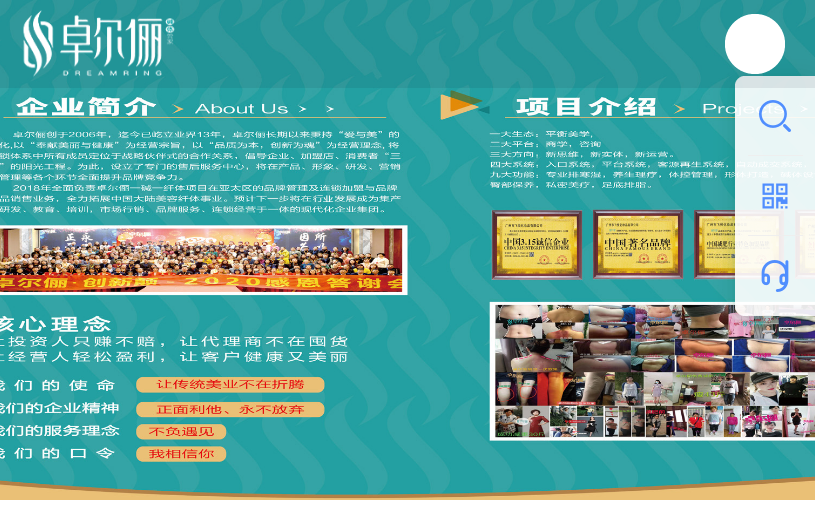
%!PS-Adobe-3.0
%%BoundingBox: 0 0 815 516
%%LanguageLevel: 3
%%Pages: 1
%%EndComments
%%BeginProlog
/setink { dup -16 bitshift 255 div exch dup -8 bitshift 255 and 255 div exch 255 and 255 div setrgbcolor } def
/setalpha { dup .setfillconstantalpha .setstrokeconstantalpha } def
/disc { newpath 0 360 arc closepath } def
/rrect { 5 dict begin { /r /h /w /y /x } { exch def } forall
  x r add y moveto x w add y 2 copy h add r arct x w add y h add x 1 index r arct
  x y h add x y r arct x y 2 copy exch w add exch r arct closepath end } def
/softshadow { 12 dict begin { /a /b /q /h /w /y /x } { exch def } forall gsave /was 0 def
  9 -2 -9 { dup b mul 4 div /e exch def 1 sub .425 mul 2.718 exch exp 1 add a .99 .min exch div /now exch def
    1 1 now sub 1 was sub div sub setalpha /was now def
    w h .min e 2 mul add 0 gt { x e sub y e sub w e 2 mul add h e 2 mul add
      q e add b .6 mul add w h .min 2 div e add .min 0 .max rrect fill } if } for grestore end } def
/drawimage { 5 dict begin { /h /w /y /x /name } { exch def } forall
  gsave x y translate w h scale
  w h 8 [w 0 0 h 0 0] name (r) file false 3 colorimage grestore end } def
%%EndProlog
%%BeginSetup
<< /PageSize [815 516] /PageUsesTransparency true >> setpagedevice
%%EndSetup
%%Page: 1 1
0 .pushpdf14devicefilter
0 516 translate 1 -1 scale
4 setmiterlimit
16#FFFFFF setink
0 0 815 516 rectfill
(img1.raw) 0 0 815 500 drawimage
gsave
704 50 moveto 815 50 lineto 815 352 lineto 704 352 lineto closepath 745 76 moveto 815 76 lineto 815 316 lineto 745 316 lineto 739.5 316 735 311.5 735 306 curveto 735 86 lineto 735 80.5 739.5 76 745 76 curveto closepath eoclip newpath
16#06644B setink
735 81 80 240 10 10 0.27 softshadow
grestore
0.9 setalpha
745 76 moveto 815 76 lineto 815 316 lineto 745 316 lineto 739.5 316 735 311.5 735 306 curveto 735 86 lineto 735 80.5 739.5 76 745 76 curveto closepath fill
0.08 setalpha
16#07091C setink
0 0 815 88 rectfill
1 setalpha
(img2.raw) 23 10 152 68 drawimage
16#FFFFFF setink
755 44 30 disc fill
(img3.raw) 759 100 32 32 drawimage
16#EEEFEF setink
748 155 55 1 rectfill
(img4.raw) 762 183 26 26 drawimage
0.9 setalpha
16#EEEEEE setink
748 235 55 1 rectfill
1 setalpha
(img5.raw) 761 260 28 32 drawimage
0.9 setalpha
748 315 55 1 rectfill
.poppdf14devicefilter showpage
%%EOF
